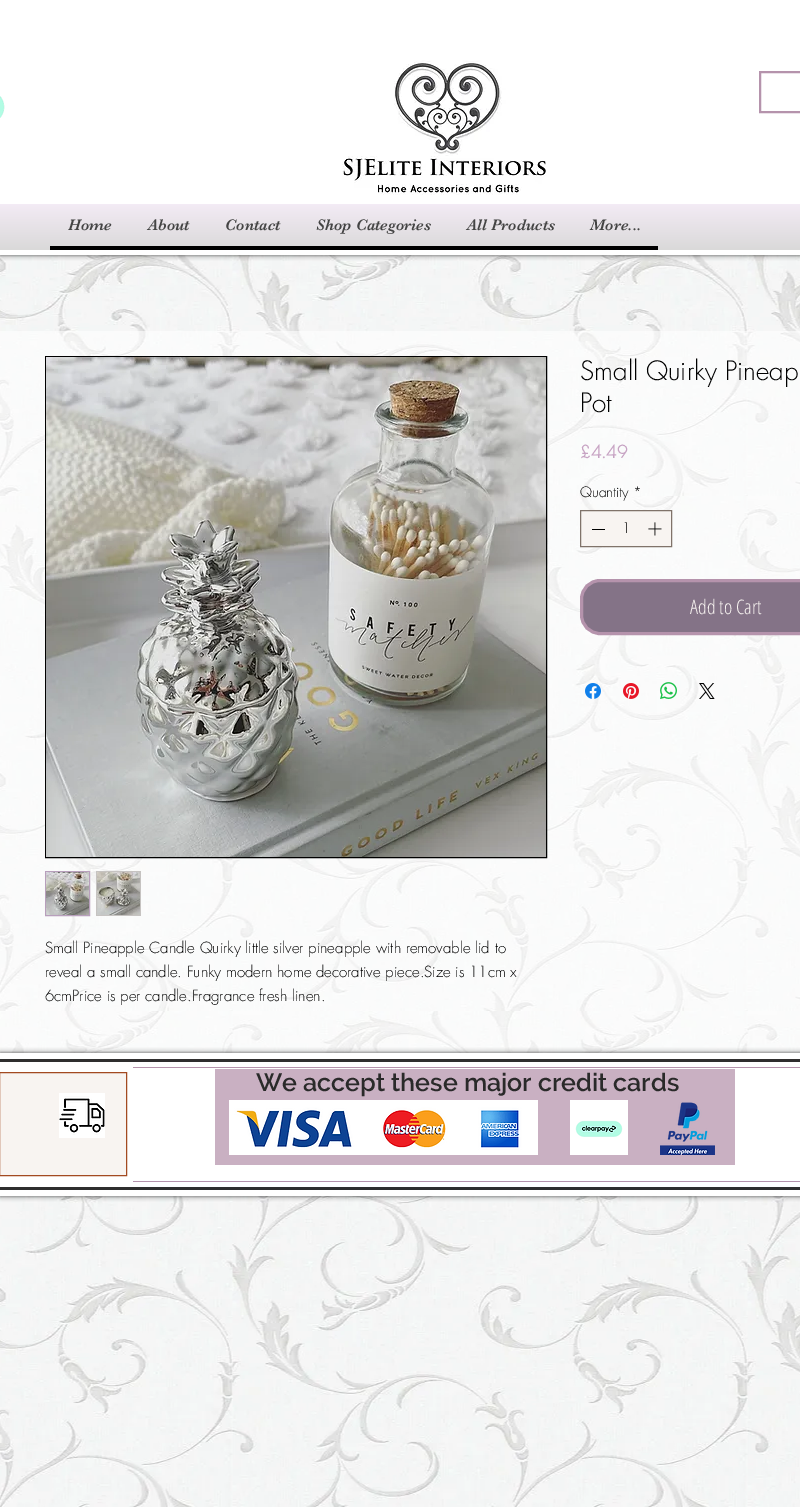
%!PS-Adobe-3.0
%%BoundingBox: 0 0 800 1507
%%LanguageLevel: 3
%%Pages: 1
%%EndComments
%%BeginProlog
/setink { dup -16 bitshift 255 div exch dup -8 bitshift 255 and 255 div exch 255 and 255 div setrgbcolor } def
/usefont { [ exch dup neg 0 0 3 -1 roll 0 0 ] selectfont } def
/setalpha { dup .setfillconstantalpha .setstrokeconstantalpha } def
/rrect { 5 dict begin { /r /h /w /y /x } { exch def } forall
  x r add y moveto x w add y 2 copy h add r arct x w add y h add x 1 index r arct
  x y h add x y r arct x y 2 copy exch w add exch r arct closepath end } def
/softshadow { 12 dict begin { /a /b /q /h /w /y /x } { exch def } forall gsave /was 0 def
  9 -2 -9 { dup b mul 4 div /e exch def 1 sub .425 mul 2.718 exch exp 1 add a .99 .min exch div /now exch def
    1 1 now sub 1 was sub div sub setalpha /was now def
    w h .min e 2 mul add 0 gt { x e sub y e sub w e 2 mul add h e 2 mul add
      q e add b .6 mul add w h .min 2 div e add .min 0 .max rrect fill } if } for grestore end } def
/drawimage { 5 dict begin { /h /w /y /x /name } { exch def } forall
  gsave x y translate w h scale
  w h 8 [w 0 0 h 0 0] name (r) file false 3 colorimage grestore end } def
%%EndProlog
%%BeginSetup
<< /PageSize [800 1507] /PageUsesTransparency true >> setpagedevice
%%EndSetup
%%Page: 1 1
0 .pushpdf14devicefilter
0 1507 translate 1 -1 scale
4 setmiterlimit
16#FFFFFF setink
0 0 800 1507 rectfill
(img15.raw) 0 255 800 1252 drawimage
16#000000 setink
0 0 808 255 0 2.5 0.7 softshadow
16#FFFFFF setink
0 0 800 255 rectfill
(img1.raw) 0 96 5 22 drawimage
(img2.raw) 342 60 204 135 drawimage
16#B593AC setink
2 setlinewidth
760 72 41 40 rectstroke
gsave 0 204 moveto 800 204 lineto 800 250 lineto 0 250 lineto closepath clip newpath
<< /ShadingType 2 /ColorSpace /DeviceRGB /Coords [490 250 490 204] /Extend [true true] /Function << /FunctionType 2 /Domain [0 1] /C0 [0.855 0.851 0.851] /C1 [0.953 0.922 0.961] /N 1 >> >> shfill grestore
16#000000 setink
50 246 608 4 rectfill
/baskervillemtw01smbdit-Regular 16 usefont
16#444444 setink
[
    [(Home) 68 230]
    [(About) 148 230]
    [(Contact) 225 230]
    [(Shop Categories) 316 230]
    [(All Products) 467 230]
    [(More...) 590 230]
] { aload pop moveto show } forall
0.59 setalpha
16#FFFFFF setink
0 331 800 722 rectfill
/futura-Light 26 usefont
1 setalpha
16#000000 setink
580 380 moveto (Small Quirky Pineap) show
580 412 moveto (Pot) show
/futura-Bold 17 usefont
16#C7A3C3 setink
580 458 moveto (£4.49) show
/futura-Light 14 usefont
16#000000 setink
580 497 moveto (Quantity) show
633 497 moveto (*) show
16#F8F4F1 setink
580.5 510.5 moveto 671.5 510.5 lineto 671.5 546.5 lineto 580.5 546.5 lineto closepath gsave fill grestore
16#80736A setink
1 setlinewidth
stroke
16#000000 setink
592 529 13 1 rectfill
622 533 moveto (1) show
(img3.raw) 648 522 14 14 drawimage
16#847387 setink
581.5 580.5 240 53 18.5 rrect gsave fill grestore
16#B593AC setink
3 setlinewidth
stroke
/OpenSansCondensed-Light 20 usefont
16#F8F4F1 setink
690 614 moveto (Add to Cart) show
(img4.raw) 585 683 16 16 drawimage
(img5.raw) 623 683 16 16 drawimage
(img6.raw) 660 682 17 17 drawimage
(img7.raw) 699 683 16 16 drawimage
16#000000 setink
1 setlinewidth
45.5 356.5 501 501 rectstroke
(img8.raw) 46 357 500 500 drawimage
16#B89FBC setink
45.5 871.5 44 44 rectstroke
(img9.raw) 46 872 43 43 drawimage
16#C6C3C1 setink
96 871 45 45 rectfill
(img10.raw) 97 872 43 43 drawimage
/futura-Light 15 usefont
16#000000 setink
[
    [(Small Pineapple Candle Quirky little silver pineapple with removable lid to) 45 953]
    [(reveal a small candle. Funky modern home decorative piece.Size is 11cm x) 45 977]
    [(6cmPrice is per candle.Fragrance fresh linen.) 45 1001]
] { aload pop moveto show } forall
0 1053 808 143 0 2.5 0.7 softshadow
[
    [0 1053 800 143 16#FFFFFF]
    [0 1059 800 3 16#2F2E2E]
    [0 1187 800 3 16#2F2E2E]
    [133 1067 667 1 16#B593AC]
    [133 1181 667 1 16#B593AC]
] { aload pop setink rectfill } forall
16#F8F4F1 setink
-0.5 1072.5 moveto 126.5 1072.5 lineto 126.5 1175.5 lineto -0.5 1175.5 lineto closepath gsave fill grestore
16#A34A21 setink
stroke
(img11.raw) 59 1093 46 45 drawimage
16#C9B0C2 setink
215 1069 520 96 rectfill
/Raleway-SemiBold 25 usefont
16#2A2A2A setink
256 1091 moveto (We accept these major credit cards) show
(img12.raw) 229 1100 309 55 drawimage
(img13.raw) 570 1100 58 55 drawimage
(img14.raw) 660 1102 55 53 drawimage
.poppdf14devicefilter showpage
%%EOF
